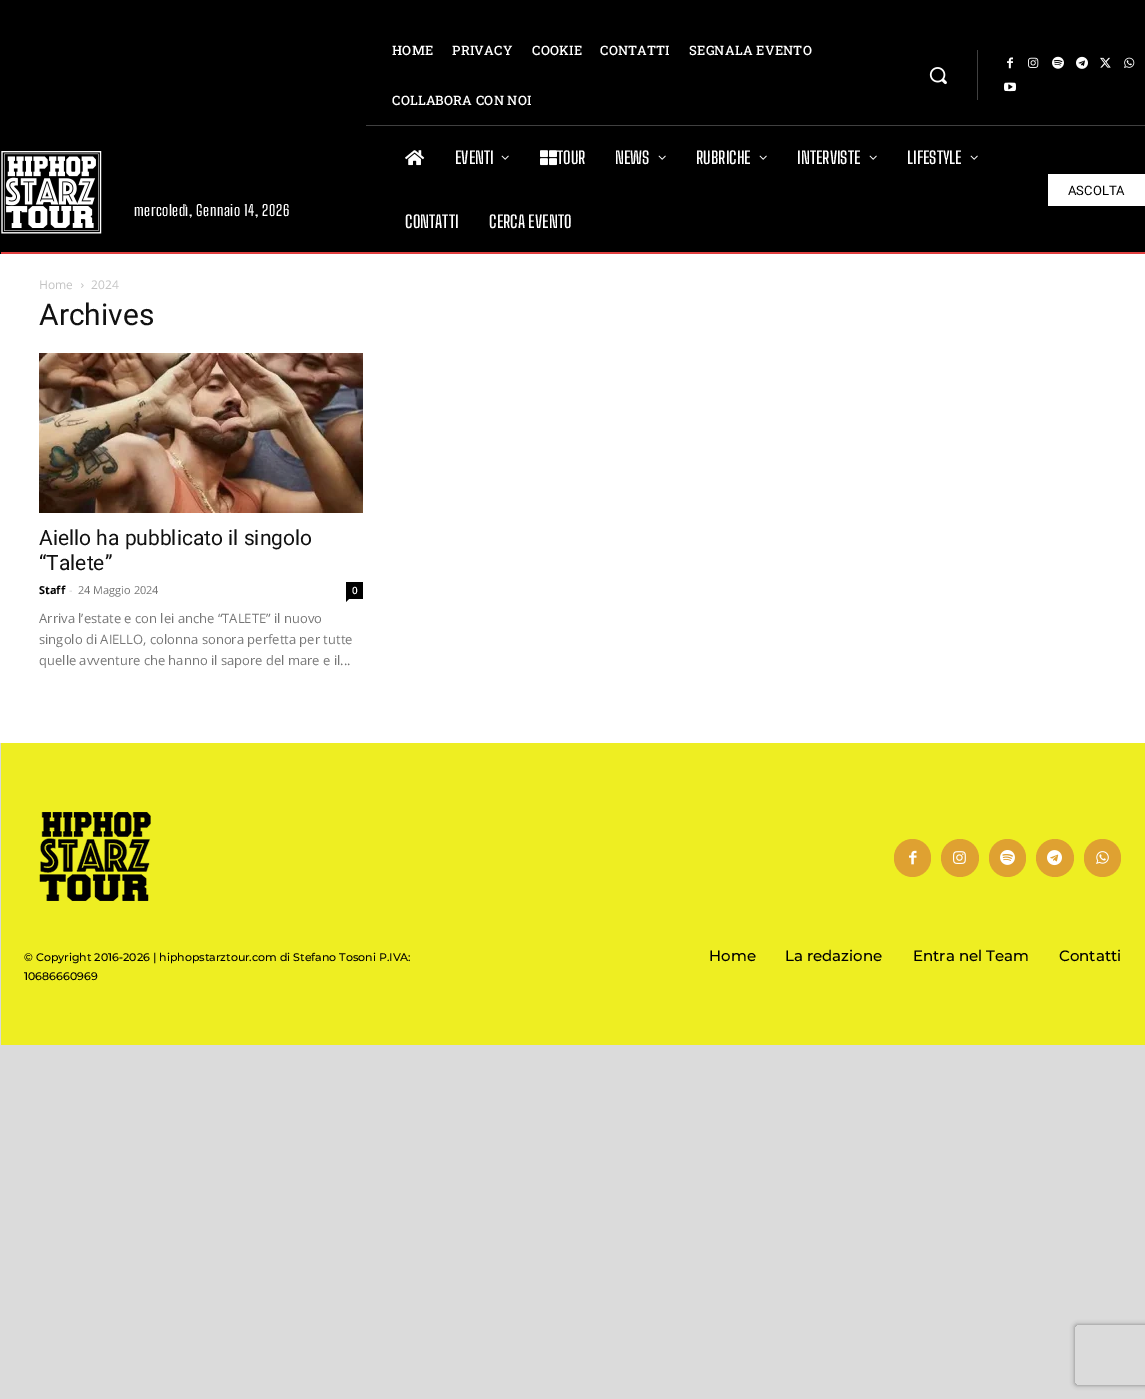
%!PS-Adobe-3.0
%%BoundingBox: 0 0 1145 1399
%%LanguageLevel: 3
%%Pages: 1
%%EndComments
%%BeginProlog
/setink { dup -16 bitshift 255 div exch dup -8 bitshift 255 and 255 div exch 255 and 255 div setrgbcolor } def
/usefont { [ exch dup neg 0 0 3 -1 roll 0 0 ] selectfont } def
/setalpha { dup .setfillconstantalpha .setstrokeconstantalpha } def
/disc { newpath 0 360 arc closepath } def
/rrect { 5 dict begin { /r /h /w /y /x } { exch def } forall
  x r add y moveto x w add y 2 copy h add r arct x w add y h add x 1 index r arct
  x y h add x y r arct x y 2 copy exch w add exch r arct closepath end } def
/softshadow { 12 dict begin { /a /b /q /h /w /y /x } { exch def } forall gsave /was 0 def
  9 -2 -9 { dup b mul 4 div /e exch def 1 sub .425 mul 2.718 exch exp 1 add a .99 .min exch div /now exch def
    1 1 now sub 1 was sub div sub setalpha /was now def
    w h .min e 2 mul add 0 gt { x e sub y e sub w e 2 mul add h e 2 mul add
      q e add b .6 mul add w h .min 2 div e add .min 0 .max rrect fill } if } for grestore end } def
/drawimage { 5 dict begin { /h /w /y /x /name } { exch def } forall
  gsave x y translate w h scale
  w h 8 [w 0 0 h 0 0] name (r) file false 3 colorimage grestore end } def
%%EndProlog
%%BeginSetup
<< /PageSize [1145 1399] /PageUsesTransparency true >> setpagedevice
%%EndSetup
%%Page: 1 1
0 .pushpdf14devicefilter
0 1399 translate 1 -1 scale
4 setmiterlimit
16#DBDBDB setink
0 0 1145 1399 rectfill
16#000000 setink
0 0 1145 254 rectfill
(img1.raw) 1 151 101 83 drawimage
/BigShouldersText-Medium 15 usefont
16#FFFFFF setink
134 216 moveto 0.5 0 (mercoledì, Gennaio 14, 2026) ashow
/RobotoSlab-Medium 13 usefont
392 55 moveto 0.25 0 (HOME) ashow
452 55 moveto 0.25 0 (PRIVACY) ashow
532 55 moveto 0.25 0 (COOKIE) ashow
600 55 moveto 0.25 0 (CONTATTI) ashow
689 55 moveto 0.25 0 (SEGNALA EVENTO) ashow
392 105 moveto 0.25 0 (COLLABORA CON NOI) ashow
(img2.raw) 929 67 18 18 drawimage
16#404040 setink
977 50 1 50 rectfill
(img3.raw) 1007 57 6 12 drawimage
(img4.raw) 1028 57 11 11 drawimage
(img5.raw) 1052 56 12 13 drawimage
(img6.raw) 1076 56 12 13 drawimage
(img7.raw) 1100 57 11 11 drawimage
(img8.raw) 1124 57 11 11 drawimage
(img9.raw) 1004 82 12 10 drawimage
366 125 779 1 rectfill
(img10.raw) 405 150 20 16 drawimage
/BigShouldersText-SemiBold 17 usefont
16#FFFFFF setink
455 164 moveto (EVENTI) show
(img11.raw) 501 155 8 5 drawimage
(img12.raw) 540 150 17 16 drawimage
557 164 moveto (TOUR) show
615 164 moveto (NEWS) show
(img11.raw) 658 155 8 5 drawimage
696 164 moveto (RUBRICHE) show
(img11.raw) 759 155 8 5 drawimage
797 164 moveto (INTERVISTE) show
(img11.raw) 869 155 8 5 drawimage
907 164 moveto (LIFESTYLE) show
(img11.raw) 970 155 8 5 drawimage
405 228 moveto (CONTATTI) show
489 228 moveto (CERCA EVENTO) show
1048 174 97 32 rectfill
/Roboto-Regular 13 usefont
16#000000 setink
1068 195 moveto (ASCOLTA) show
16#E04040 setink
1 252 1144 2 rectfill
16#FFFFFF setink
0 254 1145 489 rectfill
/OpenSans-Regular 12 usefont
16#C3C3C3 setink
39 289 moveto (Home) show
(img13.raw) 81 283 3 5 drawimage
91 289 moveto (2024) show
/Roboto-Regular 30 usefont
16#111111 setink
39 325 moveto (Archives) show
(img14.raw) 39 353 324 160 drawimage
/Roboto-Regular 21 usefont
39 545 moveto (Aiello ha pubblicato il singolo) show
39 570 moveto (“Talete”) show
/OpenSans-Bold 11 usefont
16#000000 setink
39 594 moveto (Staff) show
/OpenSans-Regular 11 usefont
16#CCCCCC setink
69 594 moveto (-) show
16#767676 setink
78 594 moveto (24 Maggio 2024) show
16#000000 setink
346 582 17 17 rectfill
/OpenSans-SemiBold 10 usefont
16#FFFFFF setink
352 594 moveto (0) show
16#000000 setink
346 599 moveto 349 599 lineto 346 602 lineto closepath fill
/OpenSans-Regular 13 usefont
16#767676 setink
[
    [(Arriva l’estate e con lei anche “TALETE” il nuovo) 39 623]
    [(singolo di AIELLO, colonna sonora perfetta per tutte) 39 644]
    [(quelle avventure che hanno il sapore del mare e il...) 39 665]
] { aload pop moveto show } forall
16#EEEE22 setink
1 743 1144 302 rectfill
(img15.raw) 39 812 112 89 drawimage
16#DFA131 setink
894 839 37 38 18.5 rrect fill
(img16.raw) 909 850 8 15 drawimage
960 858 19 disc fill
(img17.raw) 953 851 13 13 drawimage
989 839 37 38 18.5 rrect fill
(img18.raw) 1000 850 15 15 drawimage
1055 858 19 disc fill
(img19.raw) 1047 850 15 16 drawimage
1084 839 37 38 18.5 rrect fill
(img20.raw) 1096 851 13 13 drawimage
/Montserrat-Medium 11 usefont
16#000000 setink
24 961 moveto (© Copyright 2016-2026 | hiphopstarztour.com di Stefano Tosoni P.IVA:) show
24 980 moveto (10686660969) show
/Montserrat-Medium 15 usefont
[
    [(Home) 709 961]
    [(La redazione) 785 961]
    [(Entra nel Team) 913 961]
    [(Contatti) 1059 961]
] { aload pop moveto show } forall
gsave
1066 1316 moveto 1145 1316 lineto 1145 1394 lineto 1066 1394 lineto closepath 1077 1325 moveto 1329 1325 lineto 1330 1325 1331 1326 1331 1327 curveto 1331 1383 lineto 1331 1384 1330 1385 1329 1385 curveto 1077 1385 lineto 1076 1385 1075 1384 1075 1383 curveto 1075 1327 lineto 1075 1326 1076 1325 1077 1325 curveto closepath eoclip newpath
16#808080 setink
1075 1325 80 60 2 2.5 1 softshadow
grestore
.poppdf14devicefilter showpage
%%EOF
